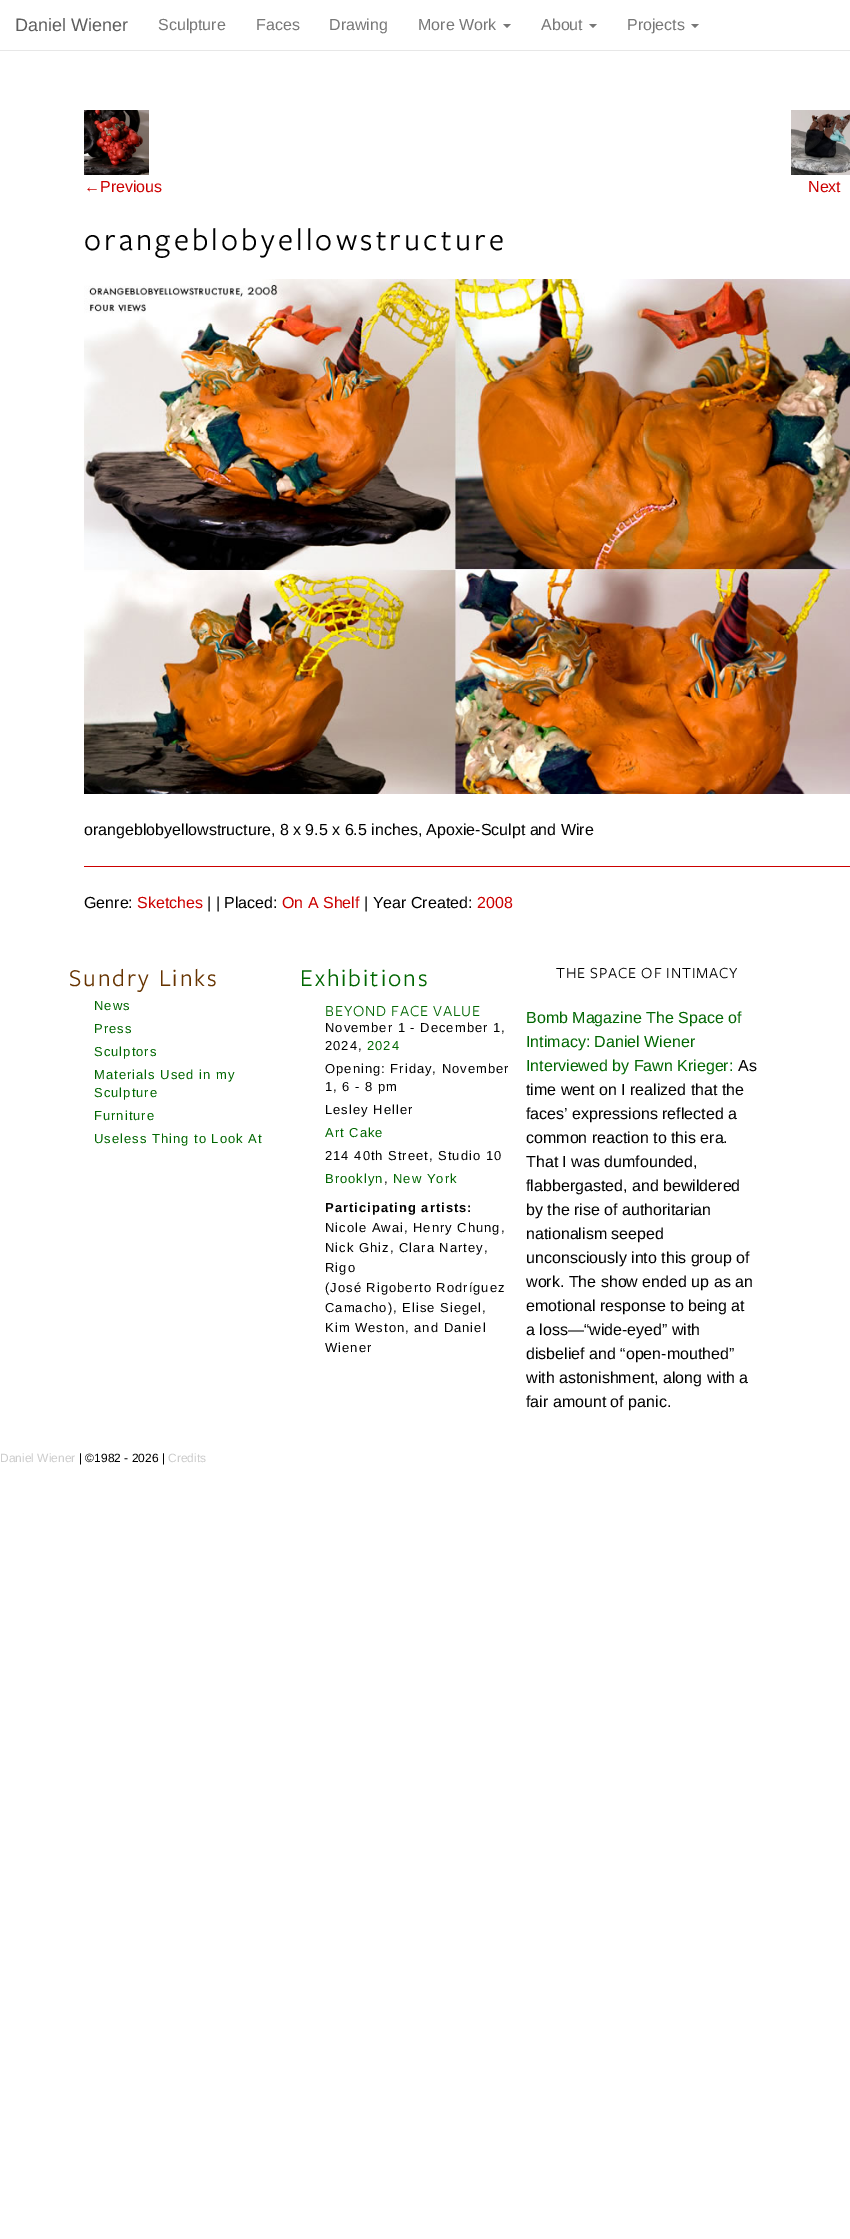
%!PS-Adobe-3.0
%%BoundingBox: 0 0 850 2239
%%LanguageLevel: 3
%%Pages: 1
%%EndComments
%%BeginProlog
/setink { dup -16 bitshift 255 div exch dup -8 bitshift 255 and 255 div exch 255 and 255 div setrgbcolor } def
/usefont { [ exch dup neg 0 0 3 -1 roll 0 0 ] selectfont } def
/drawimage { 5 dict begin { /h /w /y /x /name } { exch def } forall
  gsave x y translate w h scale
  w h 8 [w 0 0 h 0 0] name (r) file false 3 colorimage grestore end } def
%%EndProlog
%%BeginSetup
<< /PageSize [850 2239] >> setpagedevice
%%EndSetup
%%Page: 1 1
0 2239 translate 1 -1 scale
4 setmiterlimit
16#FFFFFF setink
0 0 850 2239 rectfill
16#E7E7E7 setink
0 50 850 1 rectfill
/LiberationSans-Regular 18 usefont
16#5E5E5E setink
15 31 moveto (Daniel Wiener) show
/LiberationSans-Regular 16 usefont
16#777777 setink
[
    [(Sculpture) 158 30]
    [(Faces) 256 30]
    [(Drawing) 329 30]
    [(More Work) 418 30]
] { aload pop moveto show } forall
503 24 moveto 511 24 lineto 507 28 lineto closepath fill
541 30 moveto (About) show
589 24 moveto 597 24 lineto 593 28 lineto closepath fill
627 30 moveto (Projects) show
691 24 moveto 699 24 lineto 695 28 lineto closepath fill
(img1.raw) 84 110 65 65 drawimage
16#CC0000 setink
84 192 moveto (←Previous) show
(img2.raw) 791 110 59 65 drawimage
808 192 moveto (Next) show
/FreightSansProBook-Regular 32 usefont
16#000000 setink
84 250 moveto 3.2 0 (orangeblobyellowstructure) ashow
(img3.raw) 84 279 766 515 drawimage
/LiberationSans-Regular 16 usefont
84 835 moveto (orangeblobyellowstructure, 8 x 9.5 x 6.5 inches, Apoxie-Sculpt and Wire) show
16#CC0000 setink
84 866 766 1 rectfill
16#000000 setink
84 908 moveto (Genre:) show
16#CC0000 setink
137 908 moveto (Sketches) show
16#000000 setink
207 908 moveto (| | Placed:) show
16#CC0000 setink
282 908 moveto (On A Shelf) show
16#000000 setink
364 908 moveto (| Year Created:) show
16#CC0000 setink
477 908 moveto (2008) show
/FreightSansProBook-Regular 25 usefont
16#663300 setink
69 986 moveto 2 0 (Sundry Links) ashow
/LiberationSans-Regular 13 usefont
16#006600 setink
94 1010 moveto 1 0 (News) ashow
94 1033 moveto 1 0 (Press) ashow
94 1056 moveto 1 0 (Sculptors) ashow
94 1079 moveto 1 0 (Materials Used in my) ashow
94 1097 moveto 1 0 (Sculpture) ashow
94 1120 moveto 1 0 (Furniture) ashow
94 1143 moveto 1 0 (Useless Thing to Look At) ashow
/FreightSansProBook-Regular 25 usefont
300 986 moveto 2 0 (Exhibitions) ashow
/FreightSansProBook-Regular 16 usefont
325 1016 moveto 0.8 0 (BEYOND FACE VALUE) ashow
/LiberationSans-Regular 13 usefont
16#000000 setink
325 1032 moveto 1 0 (November 1 - December 1,) ashow
325 1050 moveto 1 0 (2024,) ashow
16#006600 setink
367 1050 moveto 1 0 (2024) ashow
16#000000 setink
325 1073 moveto 1 0 (Opening: Friday, November) ashow
325 1091 moveto 1 0 (1, 6 - 8 pm) ashow
325 1114 moveto 1 0 (Lesley Heller) ashow
16#006600 setink
325 1137 moveto 1 0 (Art Cake) ashow
16#000000 setink
325 1160 moveto 1 0 (214 40th Street, Studio 10) ashow
16#006600 setink
325 1183 moveto 1 0 (Brooklyn) ashow
16#000000 setink
384 1183 moveto 1 0 (,) ashow
16#006600 setink
393 1183 moveto 1 0 (New York) ashow
/LiberationSans-Bold 13 usefont
16#000000 setink
325 1212 moveto 1 0 (Participating artists:) ashow
/LiberationSans-Regular 13 usefont
325 1232 moveto 1 0 (Nicole Awai, Henry Chung,) ashow
325 1252 moveto 1 0 (Nick Ghiz, Clara Nartey,) ashow
325 1272 moveto 1 0 (Rigo) ashow
325 1292 moveto 1 0 (\(José Rigoberto Rodríguez) ashow
325 1312 moveto 1 0 (Camacho\), Elise Siegel,) ashow
325 1332 moveto 1 0 (Kim Weston, and Daniel) ashow
325 1352 moveto 1 0 (Wiener) ashow
/FreightSansProBook-Regular 16 usefont
556 978 moveto 0.8 0 (THE SPACE OF INTIMACY) ashow
/LiberationSans-Regular 16 usefont
16#006600 setink
[
    [(Bomb Magazine The Space of) 526 1023]
    [(Intimacy: Daniel Wiener) 526 1047]
    [(Interviewed by Fawn Krieger:) 526 1071]
] { aload pop moveto show } forall
16#000000 setink
[
    [(As) 738 1071]
    [(time went on I realized that the) 526 1095]
    [(faces’ expressions reflected a) 526 1119]
    [(common reaction to this era.) 526 1143]
    [(That I was dumfounded,) 526 1167]
    [(flabbergasted, and bewildered) 526 1191]
    [(by the rise of authoritarian) 526 1215]
    [(nationalism seeped) 526 1239]
    [(unconsciously into this group of) 526 1263]
    [(work. The show ended up as an) 526 1287]
    [(emotional response to being at) 526 1311]
    [(a loss—“wide-eyed” with) 526 1335]
    [(disbelief and “open-mouthed”) 526 1359]
    [(with astonishment, along with a) 526 1383]
    [(fair amount of panic.) 526 1407]
] { aload pop moveto show } forall
/LiberationSans-Regular 12 usefont
16#CCCCCC setink
0 1462 moveto (Daniel Wiener) show
16#000000 setink
79 1462 moveto (| ©1982 - 2026 |) show
16#CCCCCC setink
168 1462 moveto (Credits) show
showpage
%%EOF
